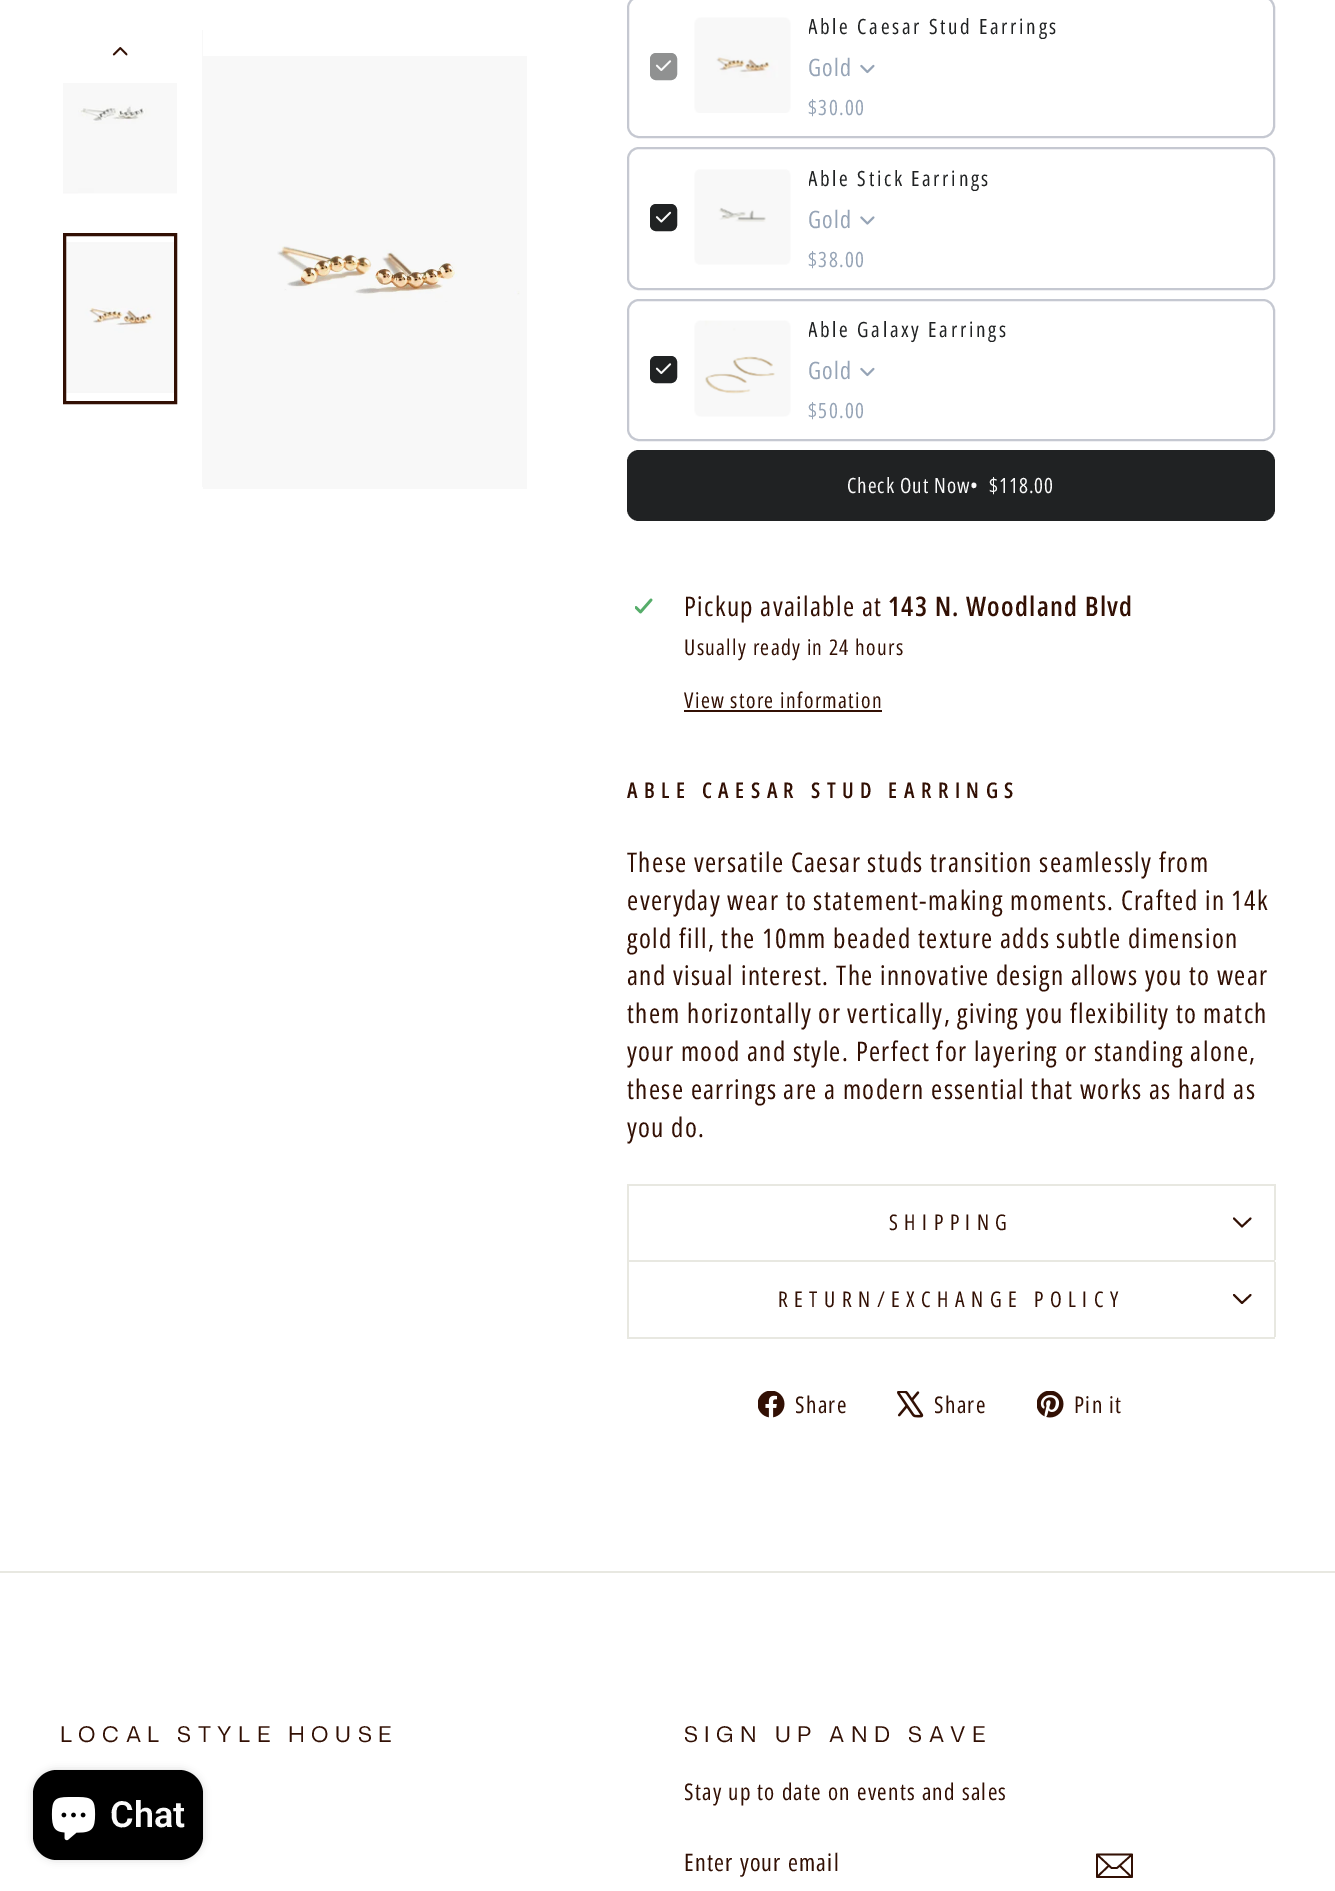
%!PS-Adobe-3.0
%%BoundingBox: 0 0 1335 1891
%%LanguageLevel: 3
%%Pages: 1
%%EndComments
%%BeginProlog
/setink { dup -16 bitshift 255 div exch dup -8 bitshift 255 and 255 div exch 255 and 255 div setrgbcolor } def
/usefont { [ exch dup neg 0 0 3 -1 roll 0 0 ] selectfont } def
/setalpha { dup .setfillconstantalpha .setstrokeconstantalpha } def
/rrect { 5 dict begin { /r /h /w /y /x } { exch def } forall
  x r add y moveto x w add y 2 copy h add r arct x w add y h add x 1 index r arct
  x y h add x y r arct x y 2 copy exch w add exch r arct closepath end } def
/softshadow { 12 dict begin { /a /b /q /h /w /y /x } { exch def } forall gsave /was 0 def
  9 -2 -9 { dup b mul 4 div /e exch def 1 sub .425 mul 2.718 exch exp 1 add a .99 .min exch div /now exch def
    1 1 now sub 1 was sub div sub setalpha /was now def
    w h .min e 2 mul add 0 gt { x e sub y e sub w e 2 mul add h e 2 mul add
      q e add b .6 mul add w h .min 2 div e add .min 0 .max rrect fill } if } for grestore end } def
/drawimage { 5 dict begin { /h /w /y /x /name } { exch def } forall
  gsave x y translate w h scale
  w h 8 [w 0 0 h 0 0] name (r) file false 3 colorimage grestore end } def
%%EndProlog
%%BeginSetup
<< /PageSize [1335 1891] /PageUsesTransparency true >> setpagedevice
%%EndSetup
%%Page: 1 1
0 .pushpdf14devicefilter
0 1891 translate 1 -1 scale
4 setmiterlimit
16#FFFFFF setink
0 0 1335 1891 rectfill
(img1.raw) 112 47 16 9 drawimage
(img2.raw) 63 83 114 111 drawimage
(img3.raw) 66 242 108 151 drawimage
16#321004 setink
3 setlinewidth
64.5 234.5 111 168 rectstroke
16#F8F8F8 setink
202 30 1 457 rectfill
(img4.raw) 203 56 324 433 drawimage
16#C5C8D1 setink
2 setlinewidth
628 -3 646 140 11 rrect stroke
16#909191 setink
651.5 54.5 24 24 4.5 rrect gsave fill grestore
3 setlinewidth
stroke
(img5.raw) 655 60 17 11 drawimage
(img6.raw) 694 17 97 96 drawimage
gsave
809 12 444 30 12 rrect clip newpath
/OpenSansCondensed-Regular 21 usefont
16#202223 setink
808 34 moveto 2.7 0 (Able Caesar Stud Earrings) ashow
grestore
/OpenSansCondensed-Regular 24 usefont
16#96A4B6 setink
808 76 moveto 1.25 0 (Gold) ashow
(img7.raw) 860 64 15 10 drawimage
/OpenSansCondensed-Regular 21 usefont
808 115 moveto 1.35 0 ($30.00) ashow
16#C5C8D1 setink
2 setlinewidth
628 148 646 141 11 rrect stroke
16#202223 setink
651.5 205.5 24 24 4.5 rrect gsave fill grestore
3 setlinewidth
stroke
(img8.raw) 655 211 17 12 drawimage
(img9.raw) 694 169 97 96 drawimage
gsave
809 164 444 30 12 rrect clip newpath
808 186 moveto 2.7 0 (Able Stick Earrings) ashow
grestore
/OpenSansCondensed-Regular 24 usefont
16#96A4B6 setink
808 228 moveto 1.25 0 (Gold) ashow
(img10.raw) 860 216 15 9 drawimage
/OpenSansCondensed-Regular 21 usefont
808 267 moveto 1.35 0 ($38.00) ashow
16#C5C8D1 setink
2 setlinewidth
628 300 646 140 11 rrect stroke
16#202223 setink
651.5 357.5 24 24 4.5 rrect gsave fill grestore
3 setlinewidth
stroke
(img11.raw) 655 363 17 11 drawimage
(img12.raw) 694 320 97 97 drawimage
gsave
809 315 444 30 12 rrect clip newpath
808 337 moveto 2.7 0 (Able Galaxy Earrings) ashow
grestore
/OpenSansCondensed-Regular 24 usefont
16#96A4B6 setink
808 379 moveto 1.25 0 (Gold) ashow
(img7.raw) 860 367 15 10 drawimage
/OpenSansCondensed-Regular 21 usefont
808 418 moveto 1.35 0 ($50.00) ashow
16#202223 setink
627 450 648 71 12 rrect fill
16#FAFAFA setink
847 493 moveto 1 0 (Check Out Now•) ashow
989 493 moveto 1 0 ($118.00) ashow
(img13.raw) 635 598 18 16 drawimage
/OpenSansCondensed-Regular 27 usefont
16#321004 setink
684 616 moveto 1.35 0 (Pickup available at) ashow
/OpenSansCondensed-SemiBold 27 usefont
888 616 moveto 1.35 0 (143 N. Woodland Blvd) ashow
/OpenSansCondensed-Regular 21.6 usefont
684 655 moveto 1.35 0 (Usually ready in 24 hours) ashow
684 708 moveto 1.35 0 (View store information) ashow
684 710 198 2 rectfill
/OpenSansCondensed-SemiBold 21.6 usefont
627 798 moveto 6.5 0 (ABLE CAESAR STUD EARRINGS) ashow
/OpenSansCondensed-Regular 27 usefont
627 872 moveto 1.35 0 (These versatile Caesar studs transition seamlessly from) ashow
627 910 moveto 1.35 0 (everyday wear to statement-making moments. Crafted in 14k) ashow
627 948 moveto 1.35 0 (gold fill, the 10mm beaded texture adds subtle dimension) ashow
627 985 moveto 1.35 0 (and visual interest. The innovative design allows you to wear) ashow
627 1023 moveto 1.35 0 (them horizontally or vertically, giving you flexibility to match) ashow
627 1061 moveto 1.35 0 (your mood and style. Perfect for layering or standing alone,) ashow
627 1099 moveto 1.35 0 (these earrings are a modern essential that works as hard as) ashow
627 1137 moveto 1.35 0 (you do.) ashow
[
    [627 1260 648 2 16#E8E8E1]
    [627 1184 648 2 16#E8E8E1]
    [1274 1184 2 76 16#E8E8E1]
    [627 1184 2 76 16#E8E8E1]
] { aload pop setink rectfill } forall
/OpenSansCondensed-Regular 21.6 usefont
16#321004 setink
889 1230 moveto 6.5 0 (SHIPPING) ashow
1.9 setlinewidth
1 setlinecap
1 setlinejoin
1234 1218.5 moveto 1242 1226.5 lineto 1250.5 1218.5 lineto stroke
[
    [627 1337 648 2 16#E8E8E1]
    [1274 1262 2 75 16#E8E8E1]
    [627 1262 2 75 16#E8E8E1]
] { aload pop setink rectfill } forall
16#321004 setink
778 1307 moveto 6.5 0 (RETURN/EXCHANGE POLICY) ashow
1234 1295 moveto 1242 1303 lineto 1250.5 1295 lineto stroke
(img14.raw) 758 1391 27 27 drawimage
/OpenSansCondensed-Regular 23 usefont
795 1413 moveto 1.35 0 (Share) ashow
(img15.raw) 897 1391 27 27 drawimage
934 1413 moveto 1.35 0 (Share) ashow
(img16.raw) 1037 1391 27 27 drawimage
1074 1413 moveto 1.35 0 (Pin it) ashow
16#E8E8E1 setink
0 1571 1335 2 rectfill
/MonaSans-Regular 21.6 usefont
16#321004 setink
60 1742 moveto 6.5 0 (LOCAL STYLE HOUSE) ashow
684 1742 moveto 6.5 0 (SIGN UP AND SAVE) ashow
/OpenSansCondensed-Regular 23 usefont
684 1800 moveto 1.35 0 (Stay up to date on events and sales) ashow
/OpenSansCondensed-Regular 24 usefont
684 1871 moveto 1.25 0 (Enter your email) ashow
1.7 setlinewidth
1132 1877 moveto 1097 1877 lineto 1097 1854.5 lineto 1132 1854.5 lineto closepath 1097 1854.5 moveto 1111.5 1868 lineto 1117 1868 lineto 1132 1854.5 lineto 1109 1865.5 moveto 1097.5 1876.5 lineto 1131.5 1877 moveto 1119.5 1865.5 lineto stroke
16#000000 setink
33 1770 170 90 24 4 0.15 softshadow
33 1770 170 90 24 rrect fill
(img17.raw) 51 1797 45 44 drawimage
/Roboto-SemiBold 36 usefont
16#FAFAFA setink
110 1827 moveto (Chat) show
.poppdf14devicefilter showpage
%%EOF
